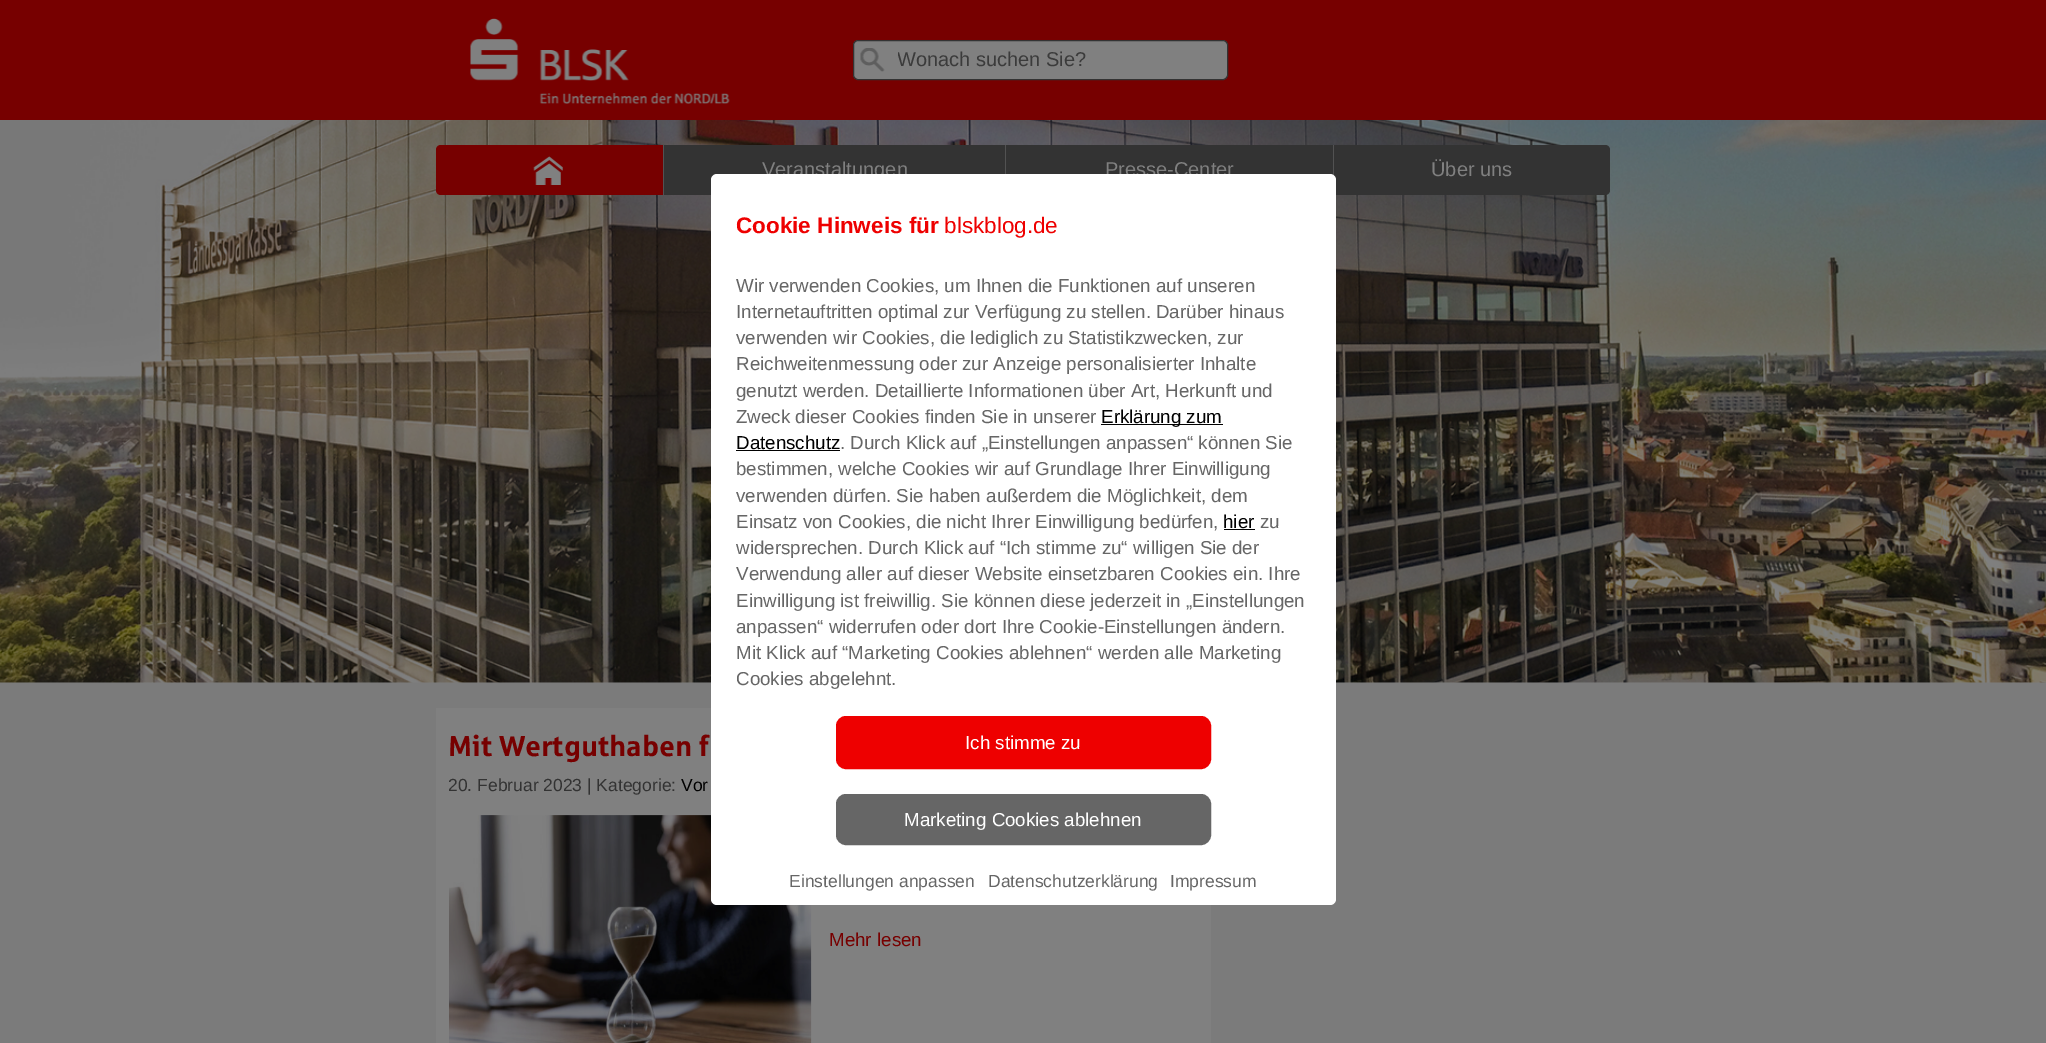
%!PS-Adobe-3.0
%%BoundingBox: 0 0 2046 1043
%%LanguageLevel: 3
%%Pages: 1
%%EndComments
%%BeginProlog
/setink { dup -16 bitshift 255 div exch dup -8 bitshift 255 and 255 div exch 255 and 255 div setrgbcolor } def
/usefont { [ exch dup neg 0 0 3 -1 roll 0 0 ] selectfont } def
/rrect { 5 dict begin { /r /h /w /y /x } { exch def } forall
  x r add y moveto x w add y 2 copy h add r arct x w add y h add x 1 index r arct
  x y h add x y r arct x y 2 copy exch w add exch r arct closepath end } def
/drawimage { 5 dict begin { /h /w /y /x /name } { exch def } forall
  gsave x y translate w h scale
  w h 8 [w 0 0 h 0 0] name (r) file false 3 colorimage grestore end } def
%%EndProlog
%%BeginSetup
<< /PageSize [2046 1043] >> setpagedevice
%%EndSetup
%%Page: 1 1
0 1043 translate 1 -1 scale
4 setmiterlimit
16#7B7B7B setink
0 0 2046 1043 rectfill
16#770000 setink
0 0 2046 120 rectfill
(img1.raw) 470 18 260 86 drawimage
16#808080 setink
853.5 40.5 374 39 4.5 rrect gsave fill grestore
16#333333 setink
stroke
(img2.raw) 860 48 25 24 drawimage
gsave
898 49 321 22 rectclip
/LiberationSans-Regular 20 usefont
16#3B3B3B setink
897 66 moveto (Wonach suchen Sie?) show
grestore
(img3.raw) 0 120 2046 563 drawimage
16#525252 setink
663 145 1 50 rectfill
16#770000 setink
441 145 moveto 663 145 lineto 663 195 lineto 441 195 lineto 438 195 436 193 436 190 curveto 436 150 lineto 436 147 438 145 441 145 curveto closepath fill
(img4.raw) 533 156 30 29 drawimage
16#333333 setink
664 145 341 50 rectfill
16#525252 setink
1005 145 1 29 rectfill
/LiberationSans-Regular 20 usefont
16#808080 setink
762 176 moveto (Veranstaltungen) show
16#333333 setink
1006 145 327 30 rectfill
16#525252 setink
1333 145 1 31 rectfill
16#808080 setink
1105 176 moveto (Presse-Center) show
16#333333 setink
1334 145 moveto 1605 145 lineto 1608 145 1610 147 1610 150 curveto 1610 190 lineto 1610 193 1608 195 1605 195 curveto 1334 195 lineto closepath fill
16#808080 setink
1431 176 moveto (Über uns) show
436 708 775 335 rectfill
/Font-Bold 28.75 usefont
16#770000 setink
448 756 moveto (Mit Wertguthaben f) show
/LiberationSans-Regular 17.5 usefont
16#333333 setink
448 791 moveto (20. Februar 2023 | Kategorie:) show
16#000000 setink
681 791 moveto (Vor) show
(img5.raw) 449 815 363 228 drawimage
/LiberationSans-Regular 18.75 usefont
16#770000 setink
829 946 moveto (Mehr lesen) show
16#FFFFFF setink
711 174 625 731 6 rrect fill
/LiberationSans-Bold 22.5 usefont
16#EE0000 setink
736 233 moveto (Cookie Hinweis für) show
/LiberationSans-Regular 22.5 usefont
944 233 moveto (blskblog.de) show
/LiberationSans-Regular 18.75 usefont
16#666666 setink
[
    [(Wir verwenden Cookies, um Ihnen die Funktionen auf unseren) 736 292]
    [(Internetauftritten optimal zur Verfügung zu stellen. Darüber hinaus) 736 318]
    [(verwenden wir Cookies, die lediglich zu Statistikzwecken, zur) 736 344]
    [(Reichweitenmessung oder zur Anzeige personalisierter Inhalte) 736 370]
    [(genutzt werden. Detaillierte Informationen über Art, Herkunft und) 736 397]
    [(Zweck dieser Cookies finden Sie in unserer) 736 423]
] { aload pop moveto show } forall
16#000000 setink
1101 424 122 1 rectfill
1101 423 moveto (Erklärung zum) show
736 449 moveto (Datenschutz) show
736 450 104 1 rectfill
16#666666 setink
[
    [(. Durch Klick auf „Einstellungen anpassen“ können Sie) 840 449]
    [(bestimmen, welche Cookies wir auf Grundlage Ihrer Einwilligung) 736 475]
    [(verwenden dürfen. Sie haben außerdem die Möglichkeit, dem) 736 502]
    [(Einsatz von Cookies, die nicht Ihrer Einwilligung bedürfen,) 736 528]
] { aload pop moveto show } forall
16#000000 setink
1223 528 moveto (hier) show
1224 529 31 1 rectfill
16#666666 setink
[
    [(zu) 1260 528]
    [(widersprechen. Durch Klick auf “Ich stimme zu“ willigen Sie der) 736 554]
    [(Verwendung aller auf dieser Website einsetzbaren Cookies ein. Ihre) 736 580]
    [(Einwilligung ist freiwillig. Sie können diese jederzeit in „Einstellungen) 736 607]
    [(anpassen“ widerrufen oder dort Ihre Cookie-Einstellungen ändern.) 736 633]
    [(Mit Klick auf “Marketing Cookies ablehnen“ werden alle Marketing) 736 659]
    [(Cookies abgelehnt.) 736 685]
] { aload pop moveto show } forall
16#EE0000 setink
837.5 717.5 372 50 8.5 rrect gsave fill grestore
3 setlinewidth
stroke
16#FFFFFF setink
965 749 moveto (Ich stimme zu) show
16#666666 setink
837.5 795.5 372 48 8.5 rrect gsave fill grestore
stroke
16#FFFFFF setink
904 826 moveto (Marketing Cookies ablehnen) show
/LiberationSans-Regular 17.5 usefont
16#666666 setink
[
    [(Einstellungen anpassen) 789 887]
    [(Datenschutzerklärung) 988 887]
    [(Impressum) 1170 887]
] { aload pop moveto show } forall
showpage
%%EOF
